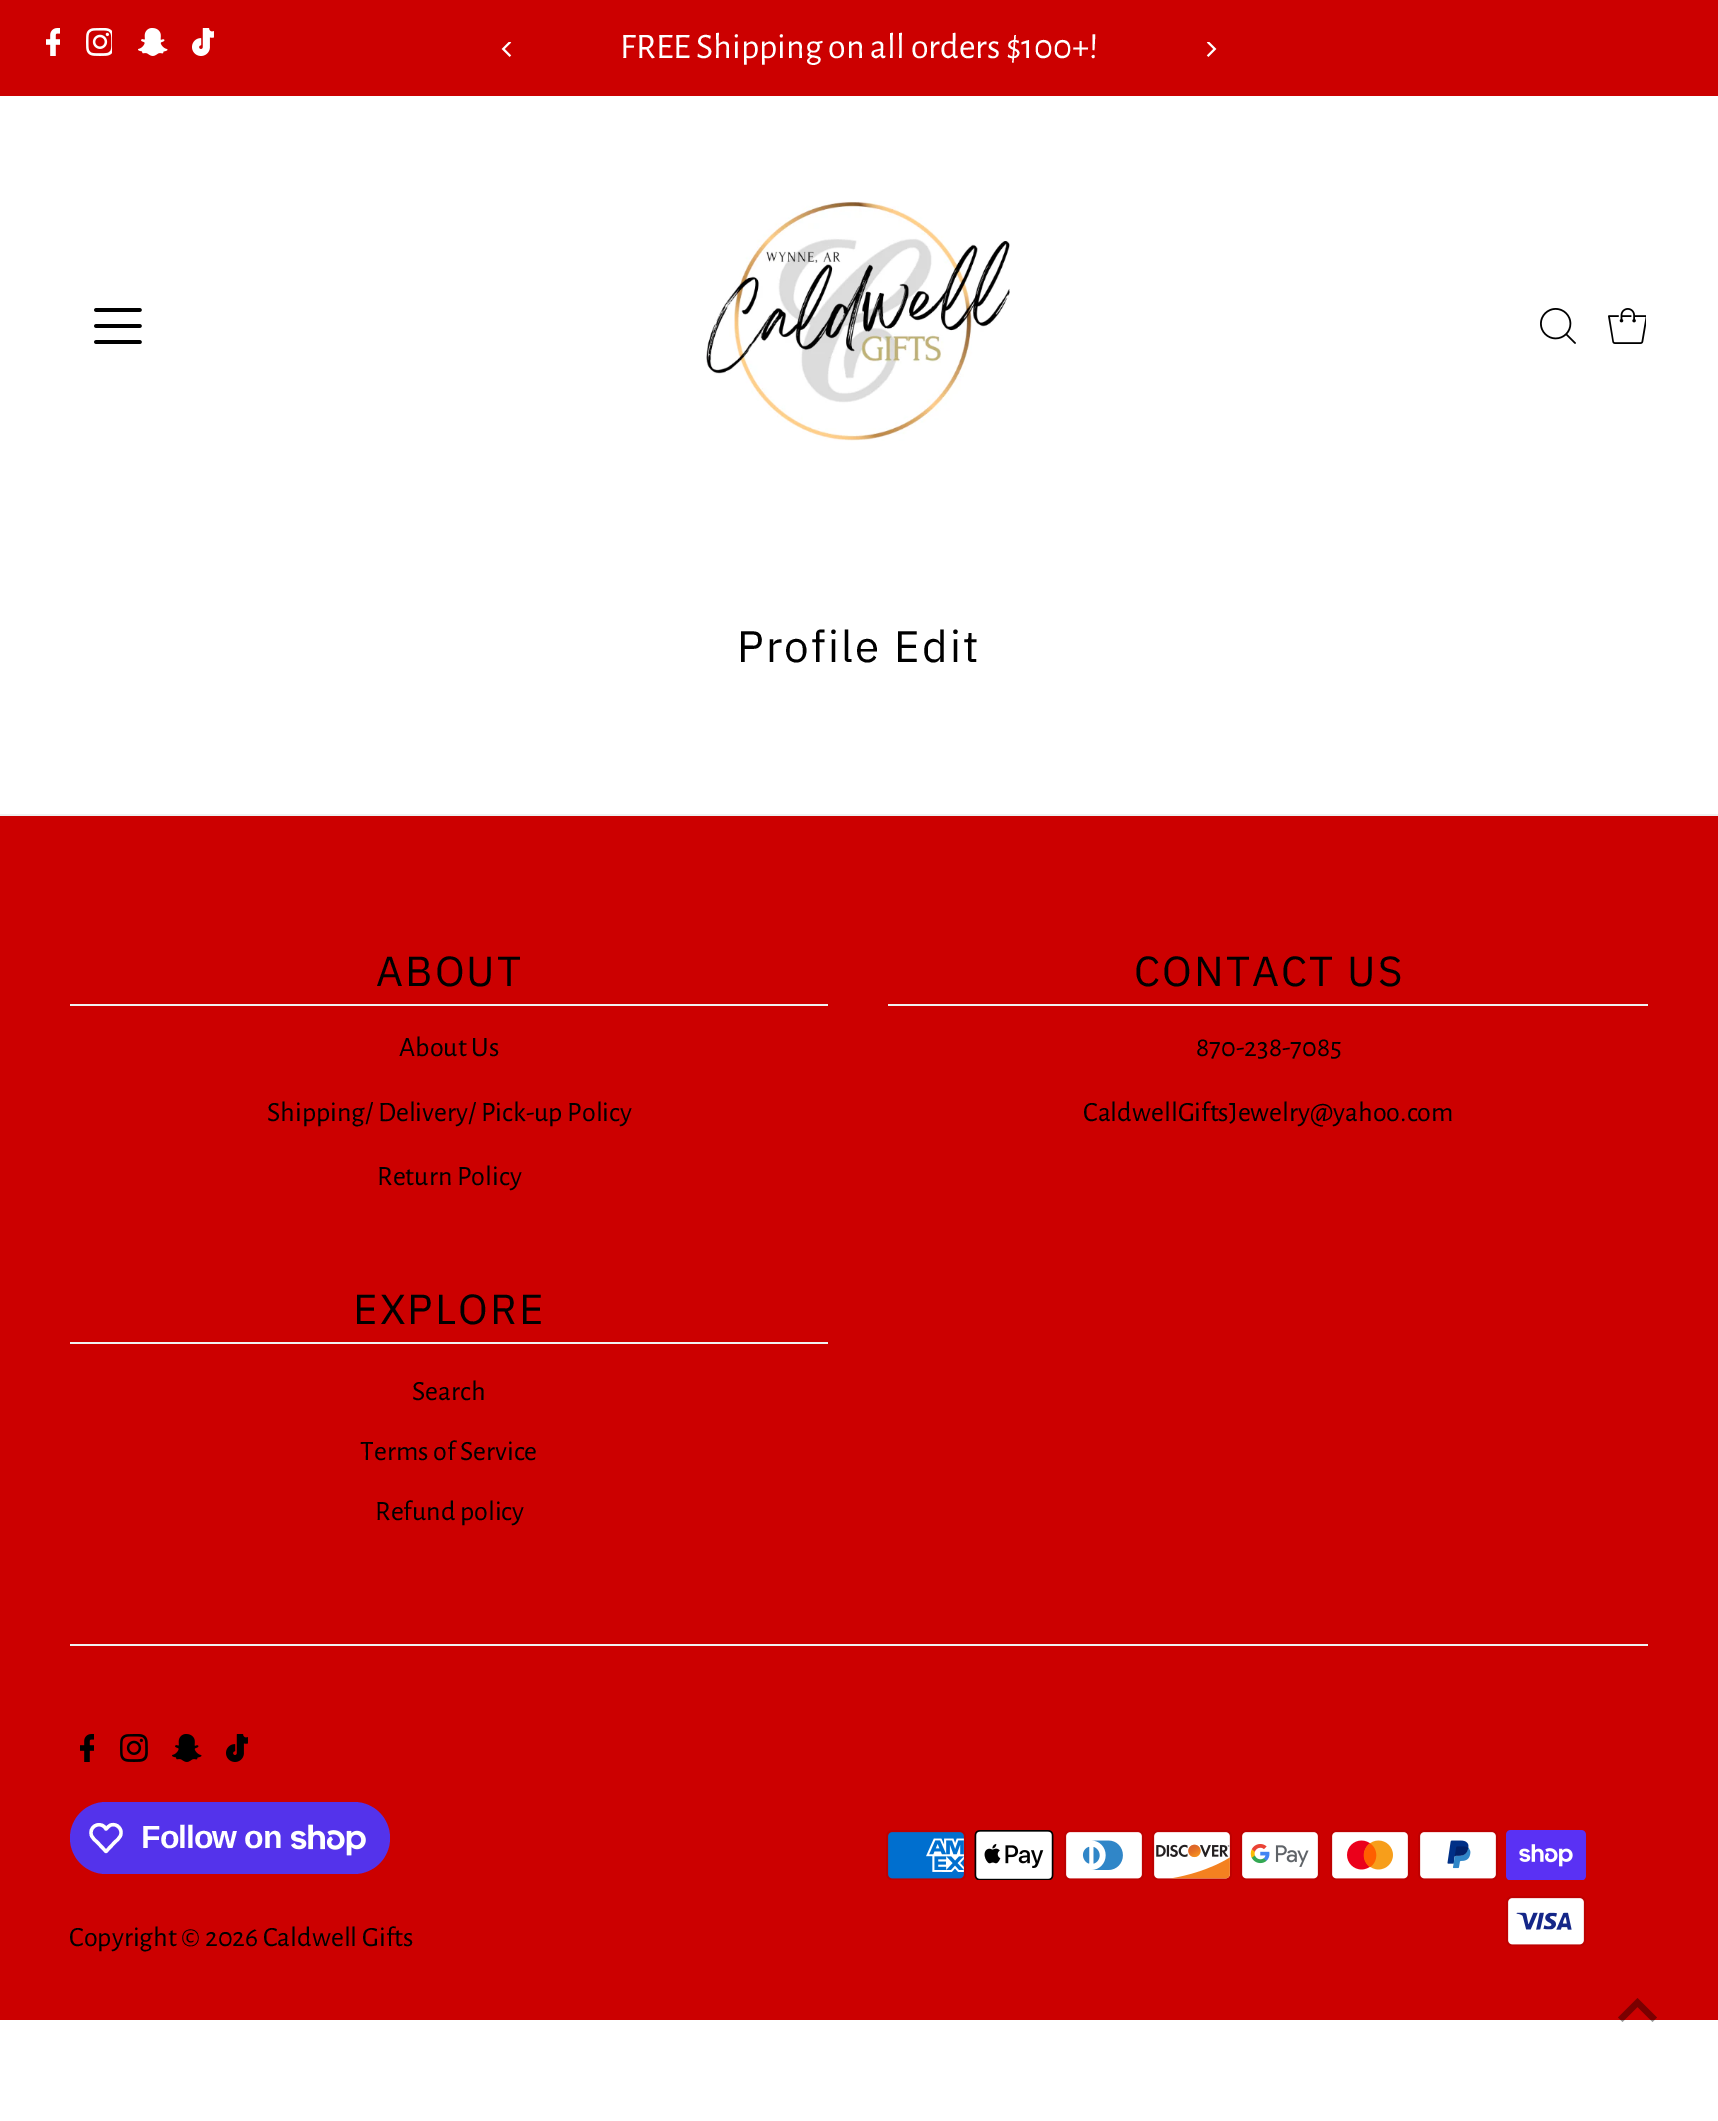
%!PS-Adobe-3.0
%%BoundingBox: 0 0 1718 2121
%%LanguageLevel: 3
%%Pages: 1
%%EndComments
%%BeginProlog
/setink { dup -16 bitshift 255 div exch dup -8 bitshift 255 and 255 div exch 255 and 255 div setrgbcolor } def
/usefont { [ exch dup neg 0 0 3 -1 roll 0 0 ] selectfont } def
/setalpha { dup .setfillconstantalpha .setstrokeconstantalpha } def
/rrect { 5 dict begin { /r /h /w /y /x } { exch def } forall
  x r add y moveto x w add y 2 copy h add r arct x w add y h add x 1 index r arct
  x y h add x y r arct x y 2 copy exch w add exch r arct closepath end } def
/drawimage { 5 dict begin { /h /w /y /x /name } { exch def } forall
  gsave x y translate w h scale
  w h 8 [w 0 0 h 0 0] name (r) file false 3 colorimage grestore end } def
%%EndProlog
%%BeginSetup
<< /PageSize [1718 2121] /PageUsesTransparency true >> setpagedevice
%%EndSetup
%%Page: 1 1
0 .pushpdf14devicefilter
0 2121 translate 1 -1 scale
4 setmiterlimit
16#FFFFFF setink
0 0 1718 2121 rectfill
16#CC0000 setink
0 0 1718 96 rectfill
(img1.raw) 46 28 14 28 drawimage
(img2.raw) 86 28 26 28 drawimage
(img3.raw) 138 28 30 28 drawimage
(img4.raw) 192 28 22 28 drawimage
(img5.raw) 501 42 11 15 drawimage
/AlegreyaSans-Regular 36 usefont
16#FFFFFF setink
620 58 moveto (FREE Shipping on all orders $100+!) show
(img6.raw) 1206 42 11 15 drawimage
(img7.raw) 94 308 48 36 drawimage
(img8.raw) 706 201 304 240 drawimage
(img9.raw) 1540 308 36 36 drawimage
(img10.raw) 1608 308 38 36 drawimage
/IBMPlexSans-Regular 44 usefont
16#000000 setink
737 662 moveto 2.25 0 (Profile Edit) ashow
[
    [0 816 1718 1204 16#CC0000]
    [0 814 1718 2 16#F0F0F0]
    [70 1004 758 2 16#F0F0F0]
] { aload pop setink rectfill } forall
/IBMPlexSans-Regular 42 usefont
16#000000 setink
376 986 moveto 2.1 0 (ABOUT) ashow
/AlegreyaSans-Regular 28 usefont
[
    [(About Us) 399 1056]
    [(Shipping/ Delivery/ Pick-up Policy) 267 1121]
    [(Return Policy) 377 1185]
] { aload pop moveto show } forall
16#F0F0F0 setink
888 1004 760 2 rectfill
/IBMPlexSans-Regular 42 usefont
16#000000 setink
1134 986 moveto 2.1 0 (CONTACT US) ashow
/AlegreyaSans-Regular 28 usefont
1196 1056 moveto (870-238-7085) show
1083 1121 moveto (CaldwellGiftsJewelry@yahoo.com) show
16#F0F0F0 setink
70 1342 758 2 rectfill
/IBMPlexSans-Regular 42 usefont
16#000000 setink
353 1324 moveto 2.1 0 (EXPLORE) ashow
/AlegreyaSans-Regular 28 usefont
[
    [(Search) 412 1400]
    [(Terms of Service) 360 1460]
    [(Refund policy) 375 1520]
] { aload pop moveto show } forall
16#F0F0F0 setink
70 1644 1578 2 rectfill
(img11.raw) 80 1734 14 28 drawimage
(img12.raw) 120 1734 28 28 drawimage
(img13.raw) 172 1734 30 28 drawimage
(img14.raw) 226 1734 22 28 drawimage
16#5433EB setink
70 1802 320 72 36 rrect fill
16#FFFFFF setink
3.3 setlinewidth
1 setlinejoin
104.5 1827 moveto 106 1829 lineto 107.5 1827.5 109 1825.5 111 1825 curveto 117 1823 123 1829.5 120.5 1835.5 curveto 119.5 1838.5 116.5 1840.5 114.5 1842.5 curveto 106 1851.5 lineto 97.5 1842.5 lineto 95.5 1840.5 92.5 1838.5 91.5 1835.5 curveto 88.5 1827.5 98.5 1821 104.5 1827 curveto closepath stroke
/LiberationSans-Bold 32 usefont
141 1848 moveto -1 0 (Follow on) ashow
(img15.raw) 291 1824 75 32 drawimage
/AlegreyaSans-Regular 28 usefont
16#000000 setink
69 1946 moveto (Copyright © 2026 Caldwell Gifts) show
(img16.raw) 886 1830 80 50 drawimage
(img17.raw) 974 1830 80 50 drawimage
(img18.raw) 1064 1830 80 50 drawimage
(img19.raw) 1152 1830 80 50 drawimage
(img20.raw) 1240 1830 80 50 drawimage
(img21.raw) 1330 1830 80 50 drawimage
(img22.raw) 1418 1830 80 50 drawimage
(img23.raw) 1506 1830 80 50 drawimage
(img24.raw) 1506 1896 80 50 drawimage
0.4 setalpha
1637.5 1998 moveto 1618 2017.5 lineto 1622.5 2022 lineto 1637.5 2007 lineto 1652.5 2022 lineto 1657 2017.5 lineto closepath fill
.poppdf14devicefilter showpage
%%EOF
